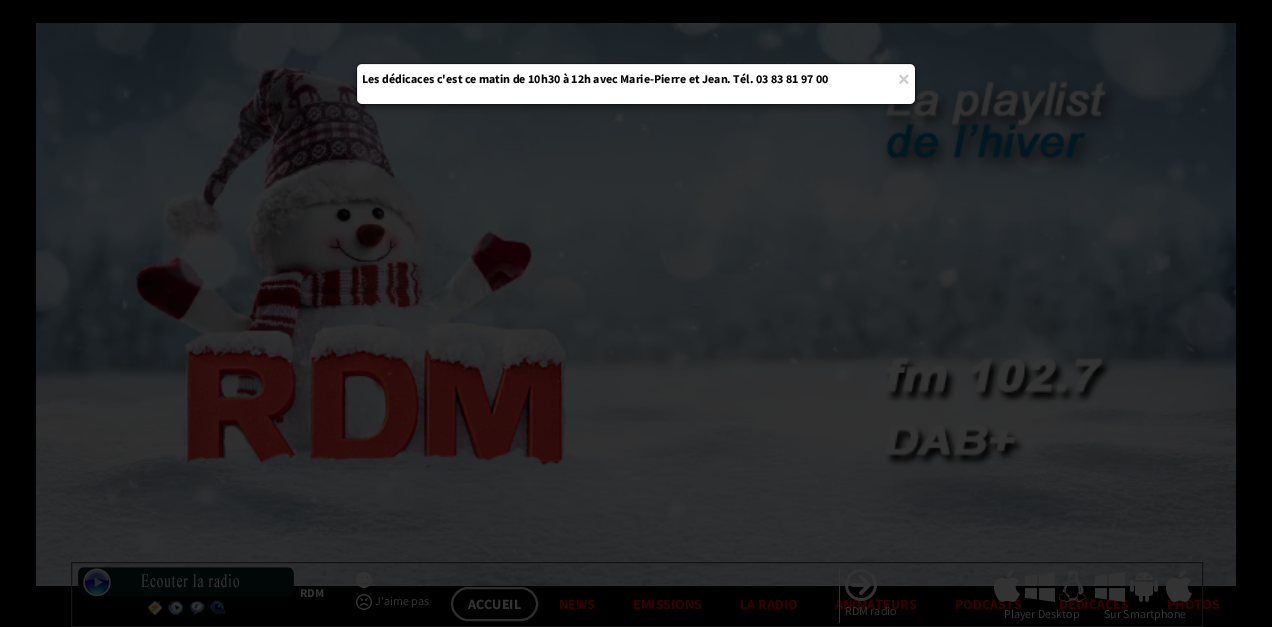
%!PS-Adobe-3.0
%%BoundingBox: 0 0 1272 627
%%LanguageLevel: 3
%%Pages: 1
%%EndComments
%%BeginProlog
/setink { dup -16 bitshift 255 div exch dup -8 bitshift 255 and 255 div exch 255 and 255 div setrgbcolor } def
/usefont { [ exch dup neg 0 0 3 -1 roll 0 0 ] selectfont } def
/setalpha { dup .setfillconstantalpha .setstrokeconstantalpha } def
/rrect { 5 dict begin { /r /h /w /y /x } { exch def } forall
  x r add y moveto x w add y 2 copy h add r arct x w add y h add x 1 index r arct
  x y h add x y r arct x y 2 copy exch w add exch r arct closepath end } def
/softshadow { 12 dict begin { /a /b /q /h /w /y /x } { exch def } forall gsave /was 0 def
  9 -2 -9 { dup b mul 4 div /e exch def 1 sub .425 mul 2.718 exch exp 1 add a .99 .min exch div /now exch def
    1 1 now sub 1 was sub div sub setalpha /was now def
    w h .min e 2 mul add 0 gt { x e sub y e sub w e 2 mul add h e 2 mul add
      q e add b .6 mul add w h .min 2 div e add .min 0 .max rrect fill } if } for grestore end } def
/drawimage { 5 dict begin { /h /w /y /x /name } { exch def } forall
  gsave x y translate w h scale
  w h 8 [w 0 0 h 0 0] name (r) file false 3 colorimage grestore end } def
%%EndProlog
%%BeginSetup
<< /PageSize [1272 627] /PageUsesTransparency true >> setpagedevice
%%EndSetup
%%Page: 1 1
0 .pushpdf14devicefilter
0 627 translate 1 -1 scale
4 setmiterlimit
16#000000 setink
0 0 1272 627 rectfill
(img15.raw) 36 23 1200 563 drawimage
356 66 560 42 6 3.5 0.3 softshadow
16#FFFFFF setink
357 64 558 40 5 rrect fill
0.3 setalpha
16#000000 setink
356.5 63.5 559 41 5.5 rrect stroke
/SourceSansPro-Bold 12 usefont
1 setalpha
362 83 moveto (Les dédicaces c'est ce matin de 10h30 à 12h avec Marie-Pierre et Jean. Tél. 03 83 81 97 00) show
/LiberationSans-Bold 20 usefont
16#CCCCCC setink
898 86 moveto (×) show
16#2D2D2D setink
2 setlinewidth
452 588 85 32 16 rrect stroke
/SourceSansPro-Bold 14 usefont
16#330101 setink
1167 609 moveto (PHOTOS) show
16#141414 setink
1 setlinewidth
71.5 562.5 1131 64 rectstroke
(img1.raw) 78 567 216 30 drawimage
(img2.raw) 147 600 16 15 drawimage
(img3.raw) 168 600 16 16 drawimage
(img4.raw) 189 600 16 15 drawimage
(img5.raw) 210 600 16 16 drawimage
/SourceSansPro-Bold 12 usefont
16#333333 setink
300 597 moveto (RDM) show
(img6.raw) 356 572 16 16 drawimage
(img7.raw) 356 594 16 16 drawimage
/SourceSansPro-Regular 12 usefont
375 605 moveto (J'aime pas) show
/SourceSansPro-Bold 14 usefont
16#330101 setink
835 609 moveto (ANIMATEURS) show
16#333333 setink
839 568 1 55 rectfill
(img8.raw) 845 569 32 32 drawimage
/SourceSansPro-Regular 12 usefont
845 615 moveto (RDM radio) show
/SourceSansPro-Bold 14 usefont
16#330101 setink
955 609 moveto (PODCASTS) show
(img9.raw) 994 570 26 32 drawimage
(img10.raw) 1025 572 30 30 drawimage
1059 609 moveto (DÉDICACES) show
(img11.raw) 1059 570 28 32 drawimage
/SourceSansPro-Regular 12 usefont
16#333333 setink
1004 618 moveto (Player Desktop) show
(img12.raw) 1095 572 30 30 drawimage
(img13.raw) 1130 570 28 32 drawimage
(img14.raw) 1166 570 26 32 drawimage
1104 618 moveto (Sur Smartphone) show
/SourceSansPro-Bold 14 usefont
468 609 moveto (ACCUEIL) show
16#330101 setink
[
    [(NEWS) 559 609]
    [(EMISSIONS) 633 609]
    [(LA RADIO) 740 609]
] { aload pop moveto show } forall
.poppdf14devicefilter showpage
%%EOF
